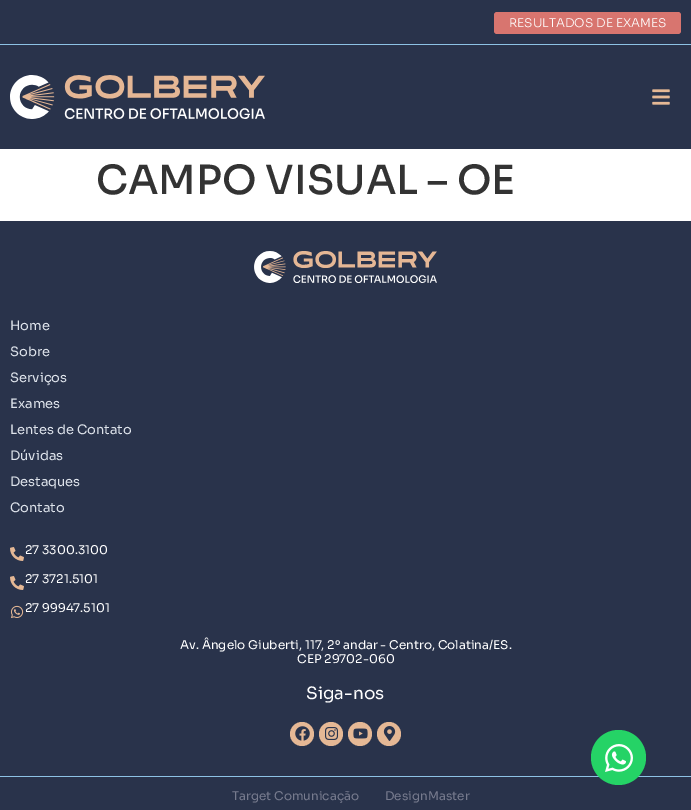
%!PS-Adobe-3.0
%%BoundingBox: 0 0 691 810
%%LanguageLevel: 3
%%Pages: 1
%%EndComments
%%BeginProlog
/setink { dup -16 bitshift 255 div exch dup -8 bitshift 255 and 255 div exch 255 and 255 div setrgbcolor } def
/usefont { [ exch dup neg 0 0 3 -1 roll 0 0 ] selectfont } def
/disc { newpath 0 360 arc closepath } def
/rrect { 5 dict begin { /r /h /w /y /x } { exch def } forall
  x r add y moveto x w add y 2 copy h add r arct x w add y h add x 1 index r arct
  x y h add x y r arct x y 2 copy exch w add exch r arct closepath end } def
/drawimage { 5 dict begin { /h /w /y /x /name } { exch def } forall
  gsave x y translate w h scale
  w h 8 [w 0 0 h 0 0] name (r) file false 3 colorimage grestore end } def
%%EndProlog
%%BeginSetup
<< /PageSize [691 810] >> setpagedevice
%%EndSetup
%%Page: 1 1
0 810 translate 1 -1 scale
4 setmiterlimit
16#FFFFFF setink
0 0 691 810 rectfill
16#29334B setink
0 0 691 44 rectfill
16#8DC2E5 setink
0 44 691 1 rectfill
16#D8756F setink
494 12 187 22 3 rrect fill
/Sora-Light 12 usefont
16#FFFFFF setink
509 27 moveto (RESULTADOS DE EXAMES) show
16#29334B setink
0 45 691 104 rectfill
(img1.raw) 10 75 255 44 drawimage
(img2.raw) 652 89 18 16 drawimage
/Sora-Medium 40 usefont
16#333333 setink
96 194 moveto (CAMPO VISUAL – OE) show
16#29334B setink
0 221 691 555 rectfill
(img3.raw) 254 251 183 32 drawimage
/Sora-Regular 13 usefont
16#DEE3EB setink
[
    [(Home) 10 330]
    [(Sobre) 10 356]
    [(Serviços) 10 382]
    [(Exames) 10 408]
    [(Lentes de Contato) 10 434]
    [(Dúvidas) 10 460]
    [(Destaques) 10 486]
    [(Contato) 10 512]
] { aload pop moveto show } forall
(img4.raw) 10 547 14 14 drawimage
/Sora-Regular 12 usefont
16#FFFFFF setink
25 554 moveto (27 3300.3100) show
(img4.raw) 10 576 14 14 drawimage
25 583 moveto (27 3721.5101) show
(img5.raw) 10 605 14 13 drawimage
[
    [(27 99947.5101) 25 612]
    [(Av. Ângelo Giuberti, 117, 2º andar - Centro, Colatina/ES.) 180 649]
    [(CEP 29702-060) 297 663]
] { aload pop moveto show } forall
/Sora-Regular 17 usefont
306 699 moveto (Siga-nos) show
16#E5B895 setink
302 734 12 disc fill
(img6.raw) 295 726 15 15 drawimage
331 734 12 disc fill
(img7.raw) 325 727 14 13 drawimage
360 734 12 disc fill
(img8.raw) 353 728 15 11 drawimage
389 734 12 disc fill
(img9.raw) 383 726 13 15 drawimage
16#29334B setink
0 777 691 33 rectfill
16#8DC2E5 setink
0 776 691 1 rectfill
/Sora-Regular 12 usefont
16#777B8E setink
232 800 moveto (Target Comunicação) show
385 800 moveto (DesignMaster) show
16#25D366 setink
618.5 757.5 27.5 disc fill
(img10.raw) 605 744 28 28 drawimage
showpage
%%EOF
